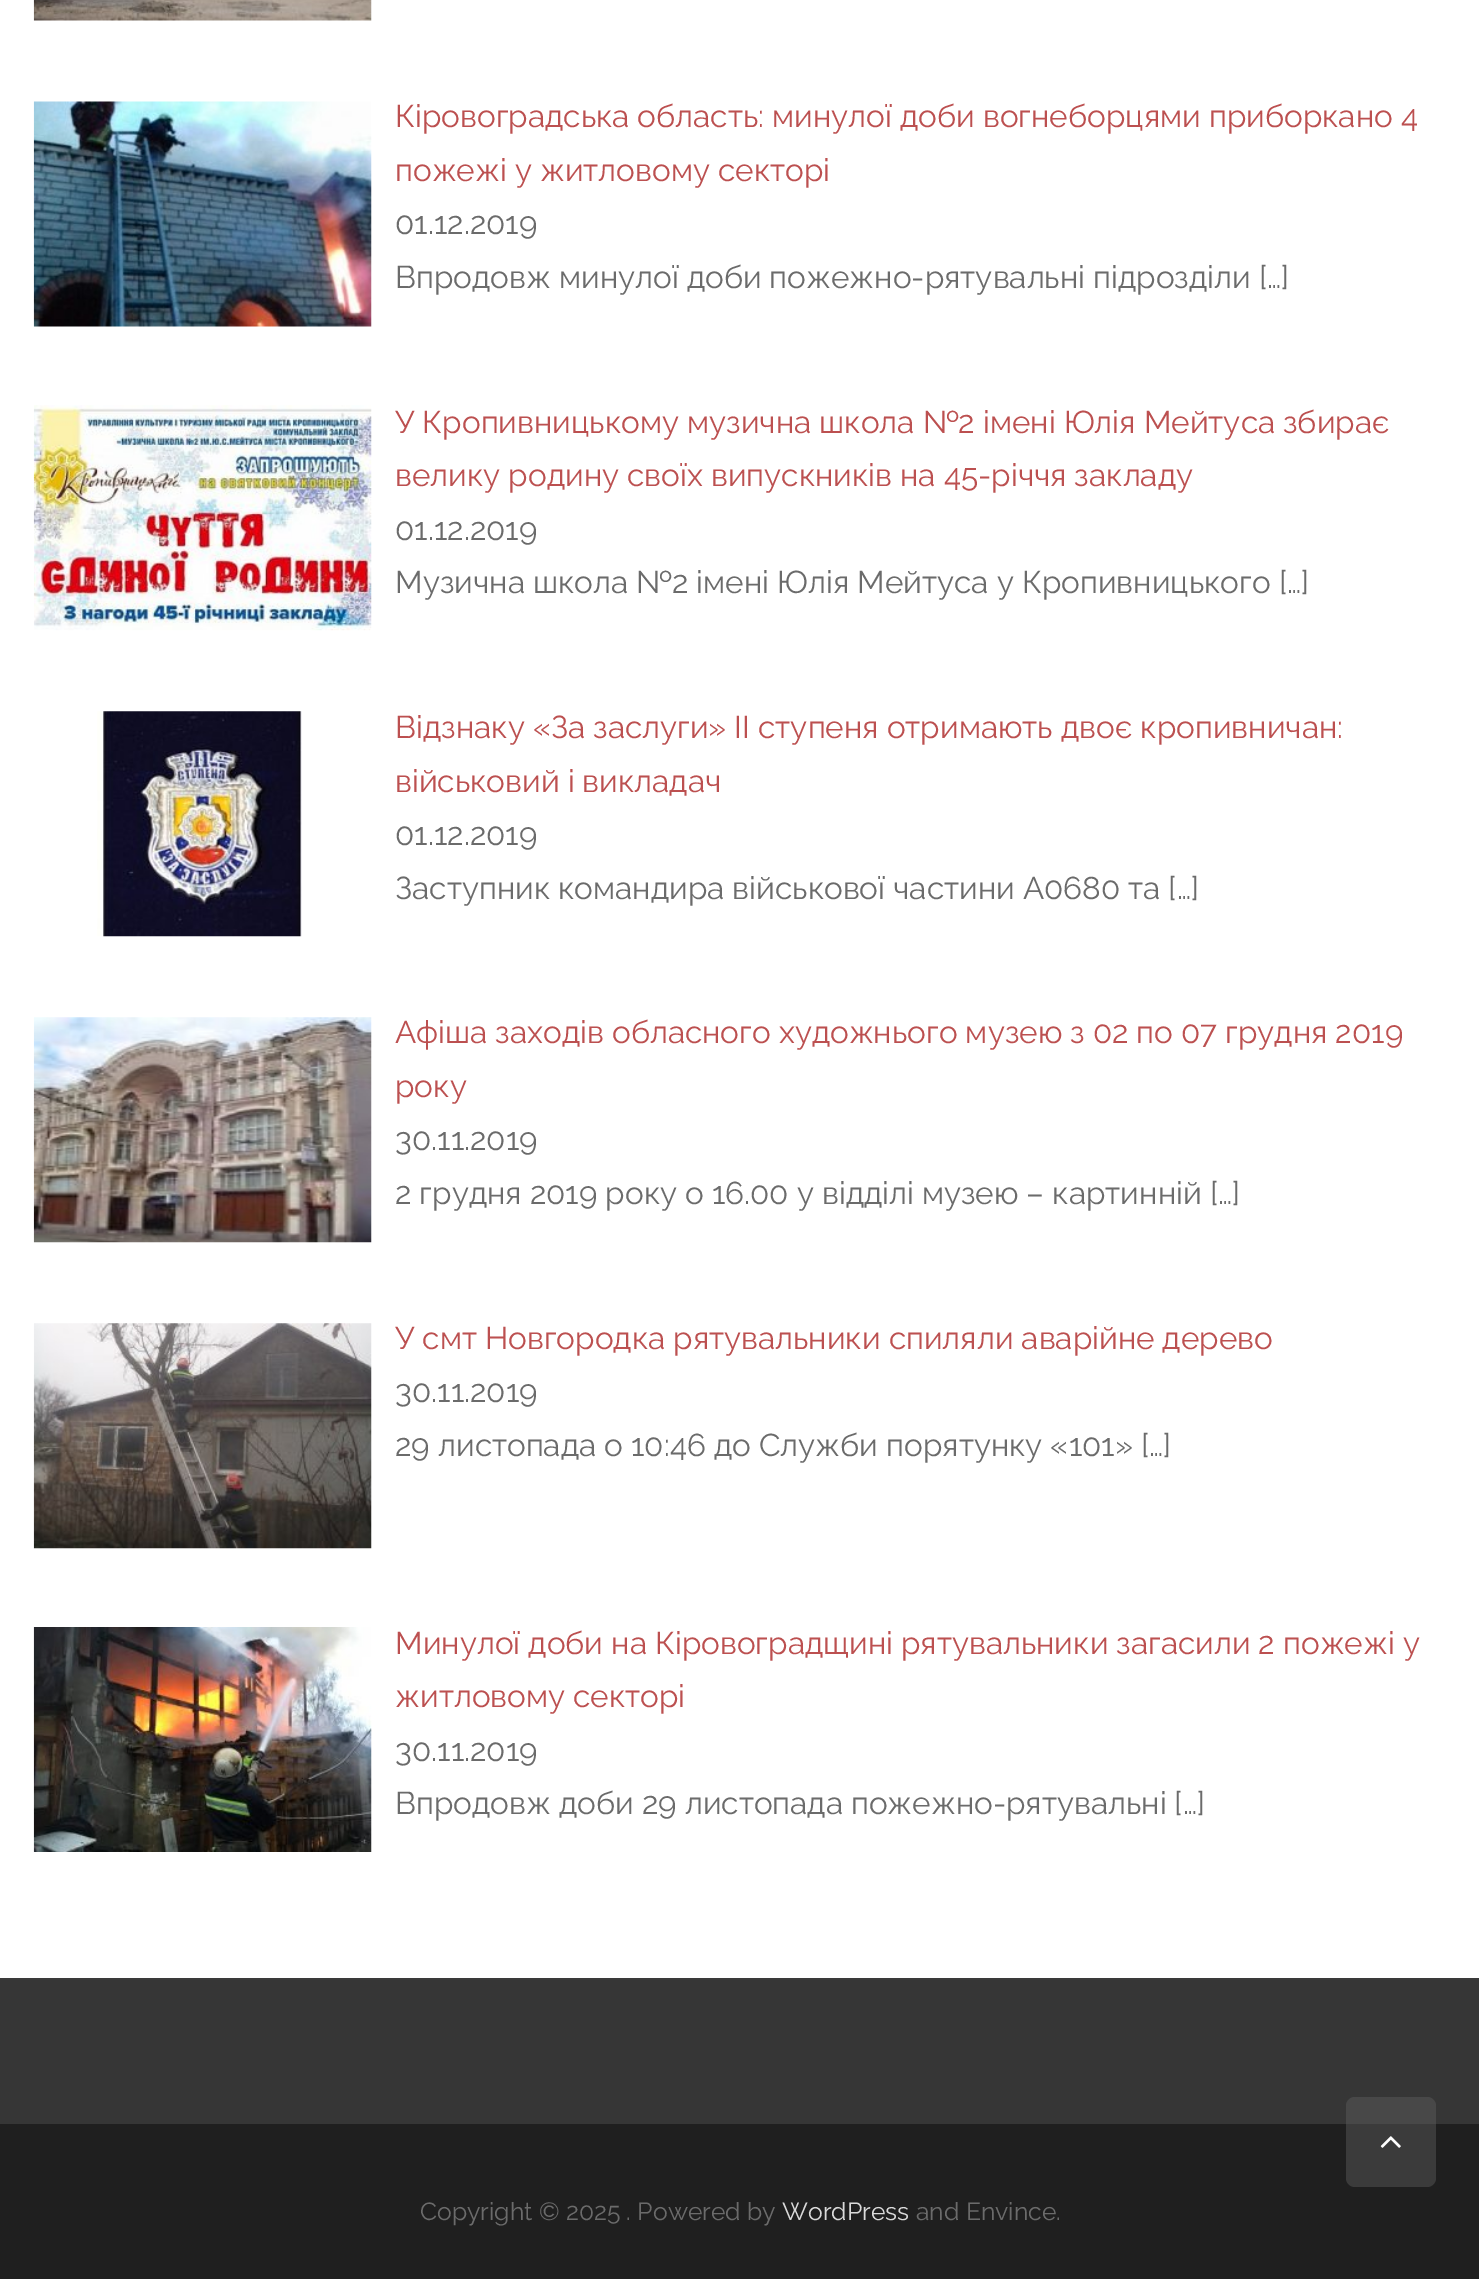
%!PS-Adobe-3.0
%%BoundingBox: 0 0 1479 2279
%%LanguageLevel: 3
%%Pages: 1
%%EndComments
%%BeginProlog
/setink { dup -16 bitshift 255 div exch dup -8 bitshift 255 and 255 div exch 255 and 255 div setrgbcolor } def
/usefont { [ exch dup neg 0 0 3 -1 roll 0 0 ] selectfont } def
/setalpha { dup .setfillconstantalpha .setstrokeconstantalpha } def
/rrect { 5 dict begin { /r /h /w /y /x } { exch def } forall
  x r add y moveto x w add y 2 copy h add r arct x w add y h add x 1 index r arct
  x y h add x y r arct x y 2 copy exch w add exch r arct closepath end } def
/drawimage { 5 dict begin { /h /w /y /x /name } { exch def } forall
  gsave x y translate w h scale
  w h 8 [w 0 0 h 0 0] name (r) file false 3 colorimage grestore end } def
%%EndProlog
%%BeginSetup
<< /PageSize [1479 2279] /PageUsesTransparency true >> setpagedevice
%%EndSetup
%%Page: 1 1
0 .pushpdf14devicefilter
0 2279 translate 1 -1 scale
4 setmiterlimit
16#FFFFFF setink
0 0 1479 2279 rectfill
(img1.raw) 33 0 339 21 drawimage
(img2.raw) 33 101 339 226 drawimage
/Raleway-Thin 31.5 usefont
16#BC5050 setink
395 127 moveto (Кіровоградська область: минулої доби вогнеборцями приборкано 4) show
395 181 moveto (пожежі у житловому секторі) show
16#6B6B6B setink
395 234 moveto (01.12.2019) show
395 288 moveto (Впродовж минулої доби пожежно-рятувальні підрозділи […]) show
(img3.raw) 33 405 339 226 drawimage
16#BC5050 setink
395 433 moveto (У Кропивницькому музична школа №2 імені Юлія Мейтуса збирає) show
395 486 moveto (велику родину своїх випускників на 45-річчя закладу) show
16#6B6B6B setink
395 540 moveto (01.12.2019) show
395 593 moveto (Музична школа №2 імені Юлія Мейтуса у Кропивницького […]) show
(img4.raw) 97 711 205 226 drawimage
16#BC5050 setink
395 738 moveto (Відзнаку «За заслуги» ІІ ступеня отримають двоє кропивничан:) show
395 792 moveto (військовий і викладач) show
16#6B6B6B setink
395 845 moveto (01.12.2019) show
395 899 moveto (Заступник командира військової частини А0680 та […]) show
(img5.raw) 33 1017 339 226 drawimage
16#BC5050 setink
395 1043 moveto (Афіша заходів обласного художнього музею з 02 по 07 грудня 2019) show
395 1097 moveto (року) show
16#6B6B6B setink
395 1150 moveto (30.11.2019) show
395 1204 moveto (2 грудня 2019 року о 16.00 у відділі музею – картинній […]) show
(img6.raw) 33 1323 339 226 drawimage
16#BC5050 setink
395 1349 moveto (У смт Новгородка рятувальники спиляли аварійне дерево) show
16#6B6B6B setink
395 1402 moveto (30.11.2019) show
395 1456 moveto (29 листопада о 10:46 до Служби порятунку «101» […]) show
(img7.raw) 33 1627 339 225 drawimage
16#BC5050 setink
395 1654 moveto (Минулої доби на Кіровоградщині рятувальники загасили 2 пожежі у) show
395 1707 moveto (житловому секторі) show
16#6B6B6B setink
395 1761 moveto (30.11.2019) show
395 1814 moveto (Впродовж доби 29 листопада пожежно-рятувальні […]) show
[
    [0 2124 1479 155 16#1F1F1F]
    [0 1978 1479 2 16#3A3A3A]
    [0 1980 1479 144 16#363636]
] { aload pop setink rectfill } forall
0.4 setalpha
16#646464 setink
1346 2097 90 90 9 rrect fill
1 setalpha
(img8.raw) 1380 2136 21 12 drawimage
/Raleway-Thin 24.75 usefont
16#6B6B6B setink
420 2220 moveto (Copyright © 2025 . Powered by) show
16#DADADA setink
782 2220 moveto (WordPress) show
16#6B6B6B setink
916 2220 moveto (and Envince.) show
.poppdf14devicefilter showpage
%%EOF
